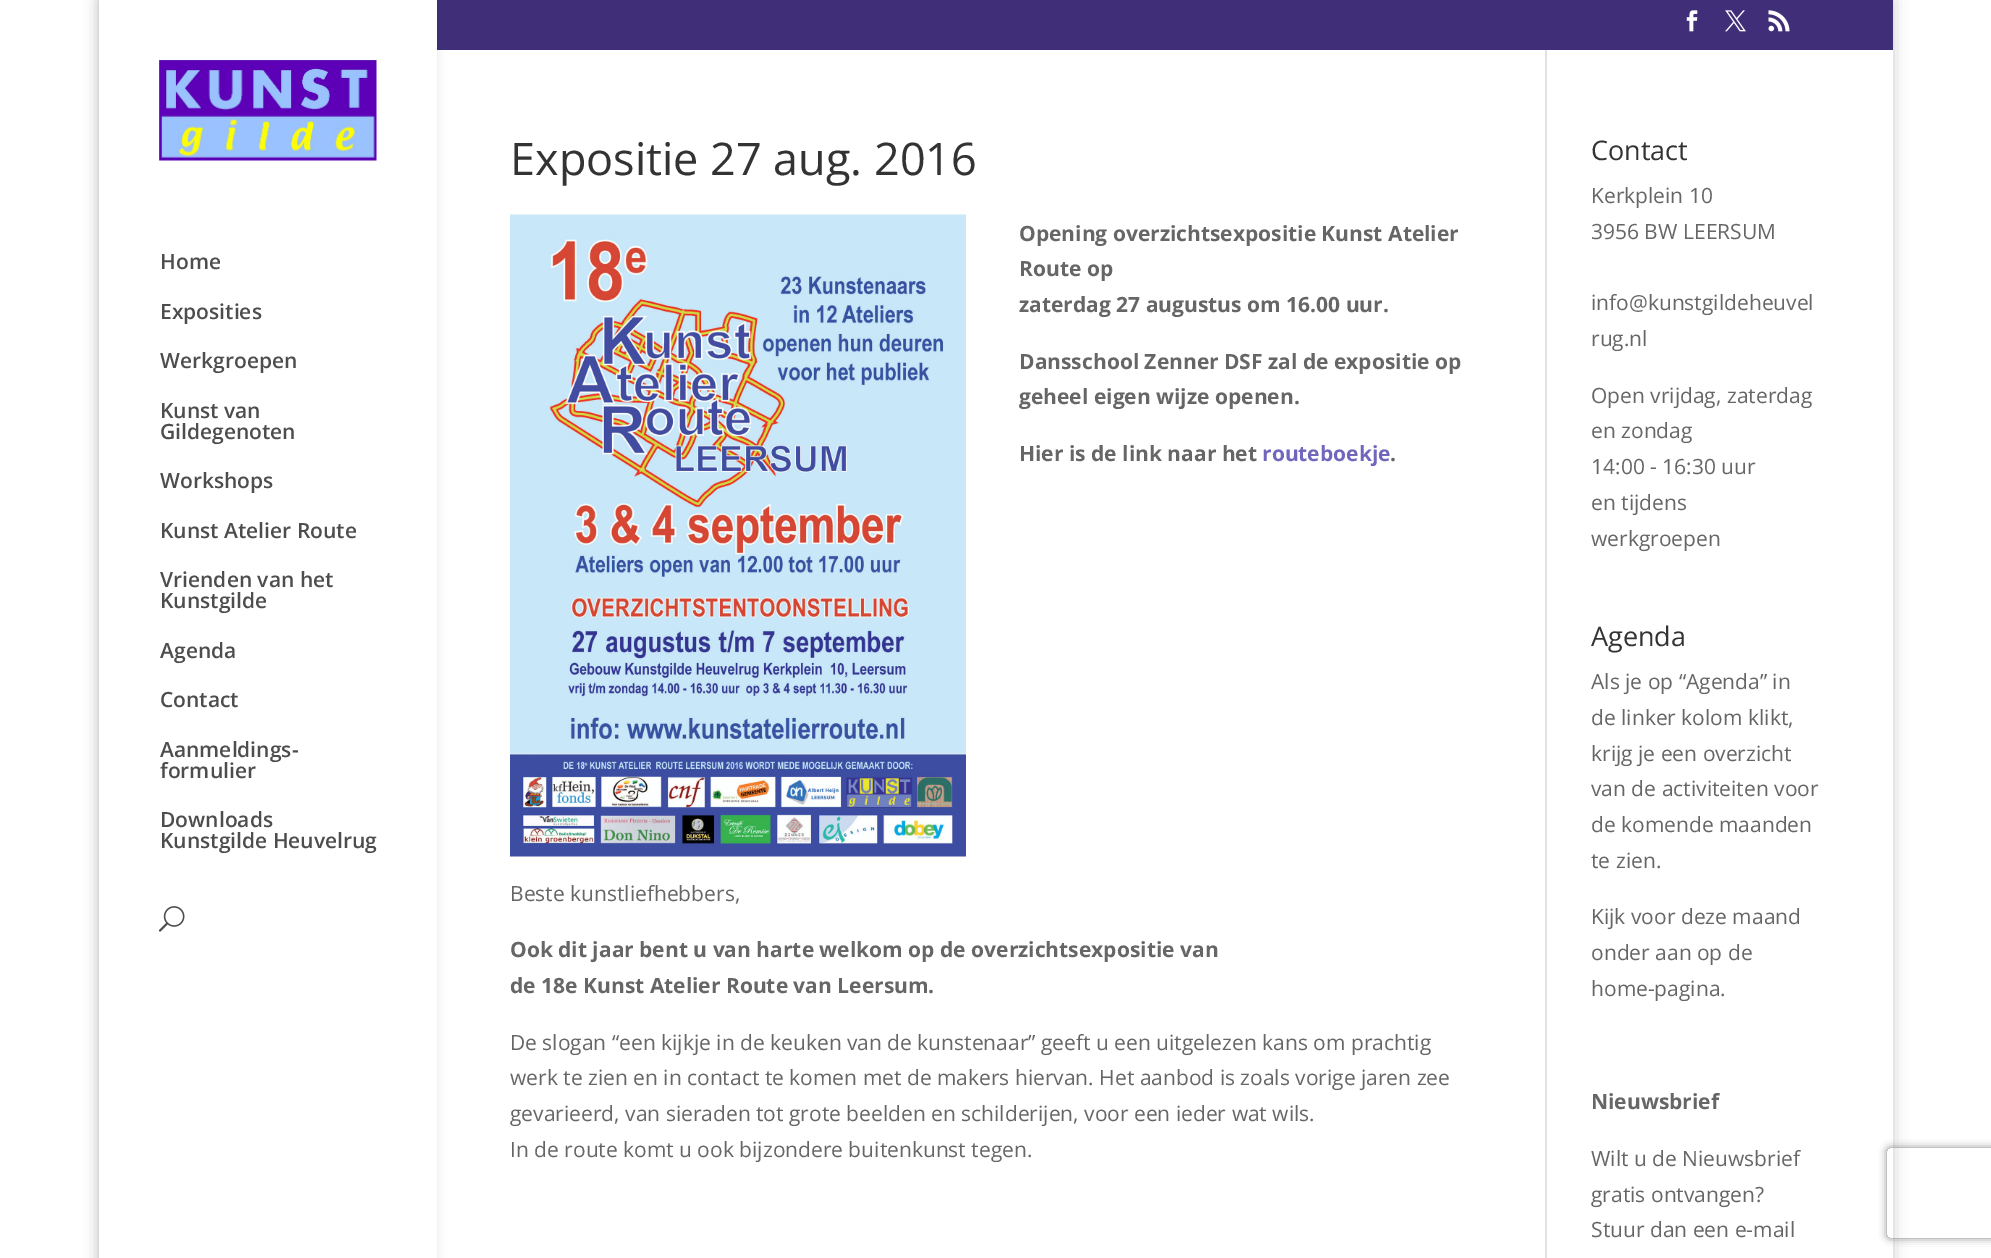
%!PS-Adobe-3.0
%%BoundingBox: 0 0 1991 1258
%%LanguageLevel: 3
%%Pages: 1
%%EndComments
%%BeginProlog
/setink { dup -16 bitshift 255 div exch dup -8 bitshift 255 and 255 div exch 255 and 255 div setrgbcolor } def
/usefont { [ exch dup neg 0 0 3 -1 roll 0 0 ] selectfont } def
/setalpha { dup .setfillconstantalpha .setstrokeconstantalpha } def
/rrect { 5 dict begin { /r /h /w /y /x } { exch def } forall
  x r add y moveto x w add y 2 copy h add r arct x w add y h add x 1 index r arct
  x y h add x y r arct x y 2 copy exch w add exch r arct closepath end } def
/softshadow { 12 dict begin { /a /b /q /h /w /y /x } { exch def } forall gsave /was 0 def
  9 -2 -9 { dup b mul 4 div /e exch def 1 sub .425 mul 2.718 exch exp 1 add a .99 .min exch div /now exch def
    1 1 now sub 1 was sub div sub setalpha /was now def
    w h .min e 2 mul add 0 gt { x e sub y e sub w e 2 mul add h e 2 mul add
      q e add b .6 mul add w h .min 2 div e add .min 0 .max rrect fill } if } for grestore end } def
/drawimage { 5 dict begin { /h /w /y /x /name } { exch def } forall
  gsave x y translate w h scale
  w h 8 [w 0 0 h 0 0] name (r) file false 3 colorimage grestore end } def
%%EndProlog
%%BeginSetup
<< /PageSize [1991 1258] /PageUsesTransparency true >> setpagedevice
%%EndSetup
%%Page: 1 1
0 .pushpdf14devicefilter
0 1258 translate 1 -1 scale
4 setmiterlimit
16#FFFFFF setink
0 0 1991 1258 rectfill
gsave
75 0 moveto 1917 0 lineto 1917 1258 lineto 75 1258 lineto closepath 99 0 moveto 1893 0 lineto 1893 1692 lineto 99 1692 lineto closepath eoclip newpath
16#000000 setink
99 0 1794 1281 0 7.5 0.2 softshadow
grestore
16#402F78 setink
437 0 1456 50 rectfill
(img1.raw) 1686 10 12 22 drawimage
(img2.raw) 1725 10 21 22 drawimage
(img3.raw) 1768 10 22 22 drawimage
16#000000 setink
99 0 338 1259 0 5 0.1 softshadow
16#FFFFFF setink
99 0 338 1258 rectfill
(img4.raw) 159 60 218 101 drawimage
/OpenSans-SemiBold 21 usefont
16#4D4D4D setink
[
    [(Home) 160 269]
    [(Exposities) 160 319]
    [(Werkgroepen) 160 368]
    [(Kunst van) 160 418]
    [(Gildegenoten) 160 439]
    [(Workshops) 160 488]
    [(Kunst Atelier Route) 160 538]
    [(Vrienden van het) 160 587]
    [(Kunstgilde) 160 608]
    [(Agenda) 160 658]
    [(Contact) 160 707]
    [(Aanmeldings-) 160 757]
    [(formulier) 160 778]
    [(Downloads) 160 827]
    [(Kunstgilde Heuvelrug) 160 848]
] { aload pop moveto show } forall
(img5.raw) 158 906 27 26 drawimage
16#E2E2E2 setink
1545 50 2 1208 rectfill
/OpenSans-Regular 45 usefont
16#333333 setink
510 175 moveto (Expositie 27 aug. 2016) show
(img6.raw) 510 214 456 643 drawimage
/OpenSans-Bold 21 usefont
16#666666 setink
[
    [(Opening overzichtsexpositie Kunst Atelier) 1019 241]
    [(Route op) 1019 276]
    [(zaterdag 27 augustus om 16.00 uur.) 1019 312]
    [(Dansschool Zenner DSF zal de expositie op) 1019 369]
    [(geheel eigen wijze openen.) 1019 404]
    [(Hier is de link naar het) 1019 461]
] { aload pop moveto show } forall
16#7067BC setink
1262 461 moveto (routeboekje) show
16#666666 setink
1390 461 moveto (.) show
/OpenSans-Regular 21 usefont
510 901 moveto (Beste kunstliefhebbers,) show
/OpenSans-Bold 21 usefont
510 957 moveto (Ook dit jaar bent u van harte welkom op de overzichtsexpositie van) show
510 993 moveto (de 18e Kunst Atelier Route van Leersum.) show
/OpenSans-Regular 21 usefont
[
    [(De slogan “een kijkje in de keuken van de kunstenaar” geeft u een uitgelezen kans om prachtig) 510 1050]
    [(werk te zien en in contact te komen met de makers hiervan. Het aanbod is zoals vorige jaren zee) 510 1085]
    [(gevarieerd, van sieraden tot grote beelden en schilderijen, voor een ieder wat wils.) 510 1121]
    [(In de route komt u ook bijzondere buitenkunst tegen.) 510 1157]
] { aload pop moveto show } forall
/OpenSans-Regular 27 usefont
16#333333 setink
1591 160 moveto (Contact) show
/OpenSans-Regular 21 usefont
16#666666 setink
[
    [(Kerkplein 10) 1591 203]
    [(3956 BW LEERSUM) 1591 239]
    [(info@kunstgildeheuvel) 1591 310]
    [(rug.nl) 1591 346]
    [(Open vrijdag, zaterdag) 1591 403]
    [(en zondag) 1591 438]
    [(14:00 - 16:30 uur) 1591 474]
    [(en tijdens) 1591 510]
    [(werkgroepen) 1591 546]
] { aload pop moveto show } forall
/OpenSans-Regular 27 usefont
16#333333 setink
1591 646 moveto (Agenda) show
/OpenSans-Regular 21 usefont
16#666666 setink
[
    [(Als je op “Agenda” in) 1591 689]
    [(de linker kolom klikt,) 1591 725]
    [(krijg je een overzicht) 1591 761]
    [(van de activiteiten voor) 1591 796]
    [(de komende maanden) 1591 832]
    [(te zien.) 1591 868]
    [(Kijk voor deze maand) 1591 924]
    [(onder aan op de) 1591 960]
    [(home-pagina.) 1591 996]
] { aload pop moveto show } forall
/OpenSans-Bold 21 usefont
1591 1109 moveto (Nieuwsbrief) show
/OpenSans-Regular 21 usefont
[
    [(Wilt u de Nieuwsbrief) 1591 1166]
    [(gratis ontvangen?) 1591 1202]
    [(Stuur dan een e-mail) 1591 1237]
] { aload pop moveto show } forall
gsave
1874 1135 moveto 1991 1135 lineto 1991 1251 lineto 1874 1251 lineto closepath 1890 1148 moveto 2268 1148 lineto 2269.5 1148 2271 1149.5 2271 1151 curveto 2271 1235 lineto 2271 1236.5 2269.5 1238 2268 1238 curveto 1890 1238 lineto 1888.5 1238 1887 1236.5 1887 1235 curveto 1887 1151 lineto 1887 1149.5 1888.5 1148 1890 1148 curveto closepath eoclip newpath
16#808080 setink
1887 1148 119 90 3 4 1 softshadow
grestore
.poppdf14devicefilter showpage
%%EOF
